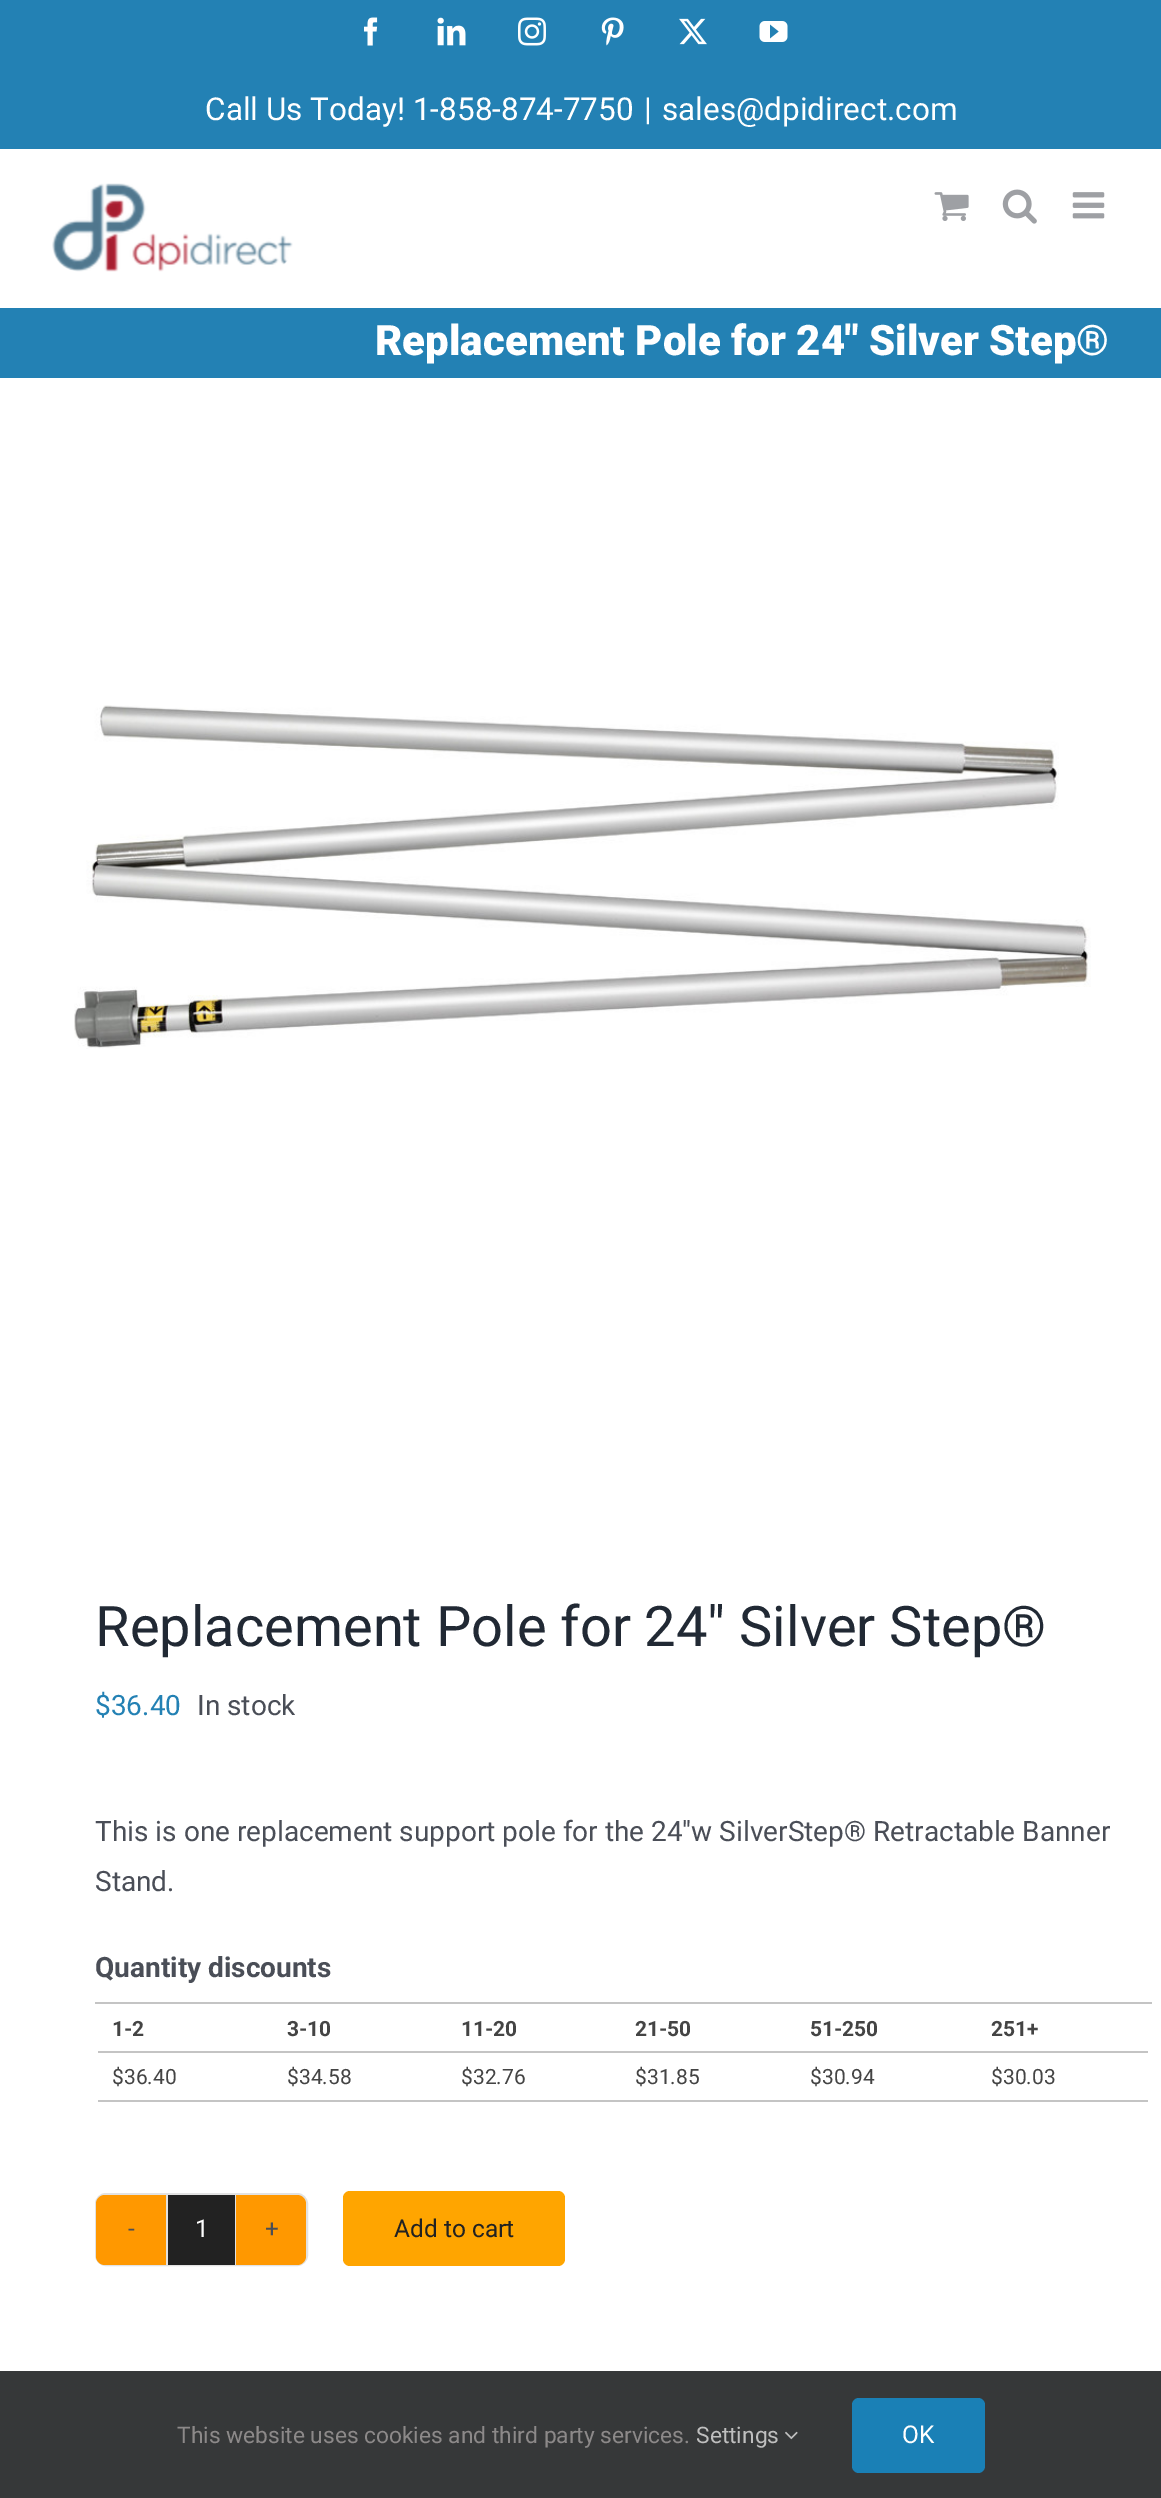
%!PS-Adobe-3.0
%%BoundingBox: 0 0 1161 2498
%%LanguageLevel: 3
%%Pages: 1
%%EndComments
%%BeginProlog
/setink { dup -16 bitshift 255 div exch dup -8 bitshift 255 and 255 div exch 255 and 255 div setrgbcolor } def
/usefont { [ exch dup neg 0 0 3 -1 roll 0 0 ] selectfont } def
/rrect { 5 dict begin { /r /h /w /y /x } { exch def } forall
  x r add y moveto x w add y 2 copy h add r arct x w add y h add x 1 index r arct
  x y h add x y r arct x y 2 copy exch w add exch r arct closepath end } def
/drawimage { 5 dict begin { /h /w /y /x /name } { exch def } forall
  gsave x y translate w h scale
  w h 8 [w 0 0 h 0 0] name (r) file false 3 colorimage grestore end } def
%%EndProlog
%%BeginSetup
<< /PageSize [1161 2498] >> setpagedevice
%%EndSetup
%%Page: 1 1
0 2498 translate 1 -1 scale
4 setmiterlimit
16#FFFFFF setink
0 0 1161 2498 rectfill
16#2381B4 setink
0 0 1161 149 rectfill
(img1.raw) 364 17 14 29 drawimage
(img2.raw) 437 17 29 29 drawimage
(img3.raw) 518 17 28 29 drawimage
(img4.raw) 601 17 23 29 drawimage
(img5.raw) 679 18 28 27 drawimage
(img6.raw) 759 21 29 21 drawimage
/Roboto-Regular 31.5 usefont
16#FFFFFF setink
[
    [(Call Us Today! 1-858-874-7750) 205 120]
    [(|) 644 120]
    [(sales@dpidirect.com) 662 120]
] { aload pop moveto show } forall
(img7.raw) 52 183 241 89 drawimage
(img8.raw) 934 192 35 29 drawimage
(img9.raw) 1002 189 35 35 drawimage
(img10.raw) 1072 192 33 27 drawimage
16#2381B4 setink
0 308 1161 70 rectfill
/Roboto-Black 42 usefont
16#FFFFFF setink
375 355 moveto (Replacement Pole for 24″ Silver Step®) show
(img11.raw) 74 705 1017 344 drawimage
/Roboto-Regular 56 usefont
16#212934 setink
95 1646 moveto (Replacement Pole for 24″ Silver Step®) show
/Roboto-Regular 28 usefont
16#2381B4 setink
95 1715 moveto ($36.40) show
16#4A4E57 setink
[
    [(In stock) 197 1715]
    [(This is one replacement support pole for the 24″w SilverStep® Retractable Banner) 95 1841]
    [(Stand.) 95 1891]
] { aload pop moveto show } forall
/Roboto-Bold 28 usefont
95 1977 moveto (Quantity discounts) show
16#C4C4C4 setink
95 2002 1057 2 rectfill
98 2051 1050 2 rectfill
/Roboto-Bold 21 usefont
16#444444 setink
[
    [(1-2) 112 2036]
    [(3-10) 287 2036]
    [(11-20) 461 2036]
    [(21-50) 635 2036]
    [(51-250) 810 2036]
    [(251+) 991 2036]
] { aload pop moveto show } forall
16#C4C4C4 setink
98 2100 1050 2 rectfill
/Roboto-Regular 21 usefont
16#444444 setink
[
    [($36.40) 112 2084]
    [($34.58) 287 2084]
    [($32.76) 461 2084]
    [($31.85) 635 2084]
    [($30.94) 810 2084]
    [($30.03) 991 2084]
] { aload pop moveto show } forall
16#E2E2E2 setink
2 setlinewidth
96 2194 211 71 10 rrect stroke
16#FF9800 setink
105 2195 moveto 166 2195 lineto 166 2265 lineto 105 2265 lineto 100 2265 96 2261 96 2256 curveto 96 2204 lineto 96 2199 100 2195 105 2195 curveto closepath fill
/Roboto-Regular 24.5 usefont
16#4A4E57 setink
128 2237 moveto (-) show
[
    [168 2195 67 70 16#222222]
    [235 2195 1 70 16#E2E2E2]
    [166 2195 2 70 16#E2E2E2]
] { aload pop setink rectfill } forall
16#FFFFFF setink
195 2237 moveto (1) show
16#FF9800 setink
236 2195 moveto 297 2195 lineto 302 2195 306 2199 306 2204 curveto 306 2256 lineto 306 2261 302 2265 297 2265 curveto 236 2265 lineto closepath fill
16#4A4E57 setink
265 2237 moveto (+) show
16#FFA500 setink
343 2191 222 75 7 rrect fill
16#222222 setink
394 2237 moveto (Add to cart) show
16#363839 setink
0 2371 1161 127 rectfill
/Roboto-Regular 22.75 usefont
16#8C8989 setink
177 2443 moveto (This website uses cookies and third party services.) show
16#BFBFBF setink
696 2443 moveto (Settings) show
(img12.raw) 785 2431 13 9 drawimage
16#1A80B6 setink
852 2398 133 75 7 rrect fill
/Roboto-Regular 24.5 usefont
16#FFFFFF setink
902 2443 moveto (OK) show
showpage
%%EOF
